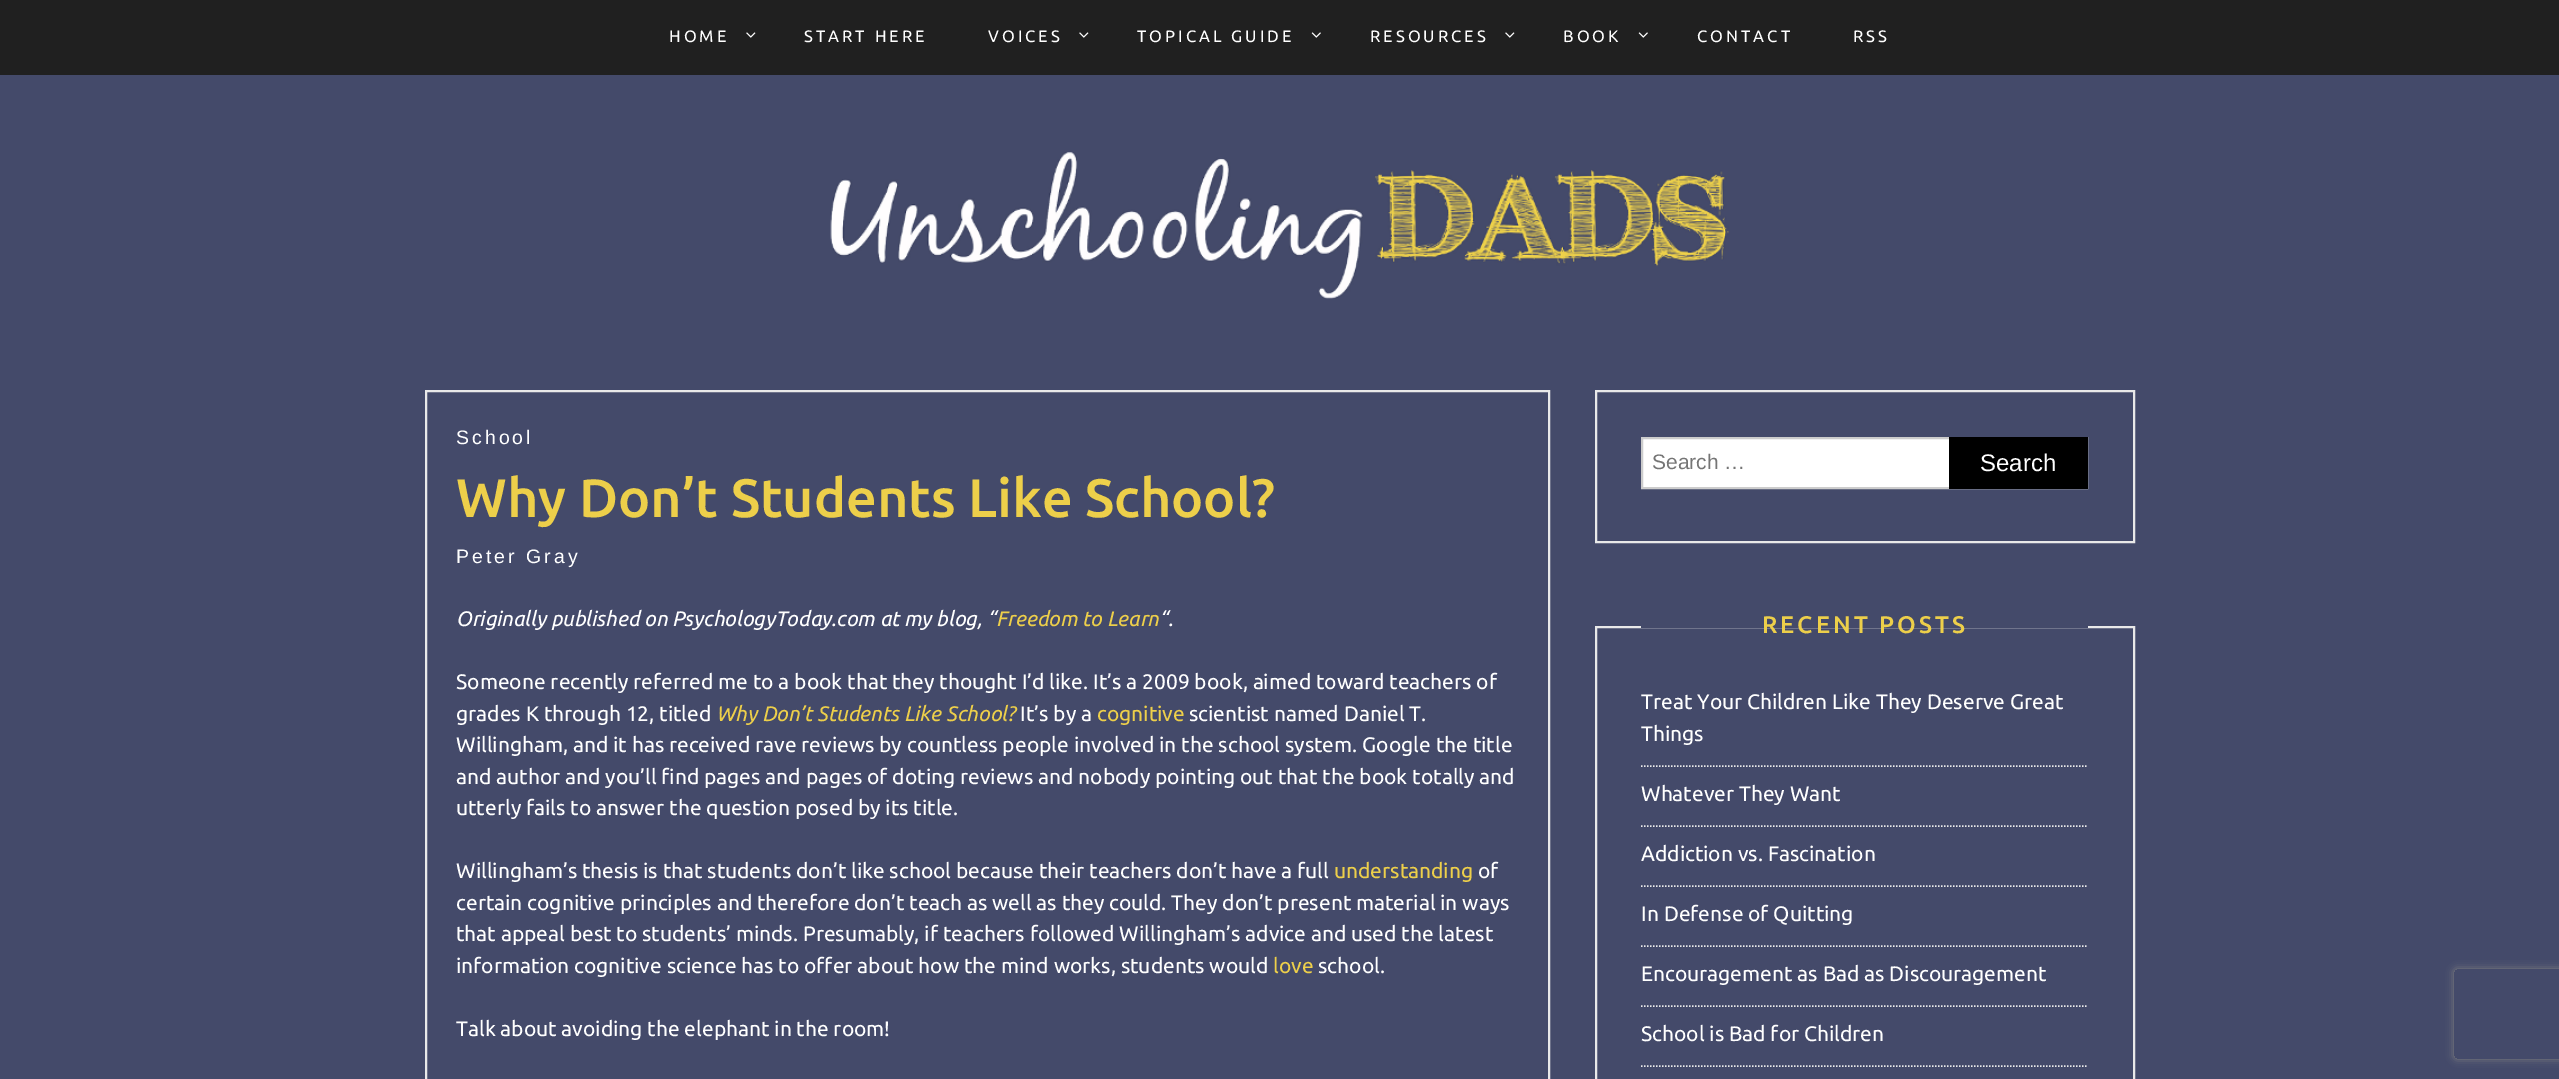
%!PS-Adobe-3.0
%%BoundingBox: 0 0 2559 1079
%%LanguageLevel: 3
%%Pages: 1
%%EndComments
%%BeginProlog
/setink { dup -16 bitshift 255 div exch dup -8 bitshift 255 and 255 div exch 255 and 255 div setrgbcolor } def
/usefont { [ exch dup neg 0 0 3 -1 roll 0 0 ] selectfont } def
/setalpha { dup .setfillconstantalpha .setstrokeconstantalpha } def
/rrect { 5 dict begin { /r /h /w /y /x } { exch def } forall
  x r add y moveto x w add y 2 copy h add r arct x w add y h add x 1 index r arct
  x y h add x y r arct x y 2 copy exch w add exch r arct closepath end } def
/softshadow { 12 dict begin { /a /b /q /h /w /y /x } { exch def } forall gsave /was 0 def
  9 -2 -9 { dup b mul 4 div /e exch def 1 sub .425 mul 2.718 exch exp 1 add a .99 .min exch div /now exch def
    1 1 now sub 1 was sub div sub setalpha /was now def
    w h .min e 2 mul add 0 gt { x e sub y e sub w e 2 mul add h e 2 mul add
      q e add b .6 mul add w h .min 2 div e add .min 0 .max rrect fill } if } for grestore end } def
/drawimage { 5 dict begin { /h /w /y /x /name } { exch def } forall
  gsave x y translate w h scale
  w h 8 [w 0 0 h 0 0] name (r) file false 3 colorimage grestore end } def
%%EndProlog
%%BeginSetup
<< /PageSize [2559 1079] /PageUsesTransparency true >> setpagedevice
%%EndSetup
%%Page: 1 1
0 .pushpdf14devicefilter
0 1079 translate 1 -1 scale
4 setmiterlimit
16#444A6A setink
0 0 2559 1079 rectfill
16#202020 setink
0 0 2559 75 rectfill
/Ubuntu-Regular 16.5 usefont
16#FFFFFF setink
669 42 moveto 3 0 (HOME) ashow
(img1.raw) 746 32 10 6 drawimage
804 42 moveto 3 0 (START HERE) ashow
988 42 moveto 3 0 (VOICES) ashow
(img1.raw) 1079 32 10 6 drawimage
1137 42 moveto 3 0 (TOPICAL GUIDE) ashow
(img2.raw) 1311 32 10 6 drawimage
1370 42 moveto 3 0 (RESOURCES) ashow
(img1.raw) 1505 32 10 6 drawimage
1563 42 moveto 3 0 (BOOK) ashow
(img2.raw) 1638 32 10 6 drawimage
1697 42 moveto 3 0 (CONTACT) ashow
1853 42 moveto 3 0 (RSS) ashow
(img3.raw) 830 152 899 147 drawimage
16#E9E9E9 setink
2 setlinewidth
426 391 1123 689 rectstroke
/LiberationSans-Regular 19.5 usefont
16#FFFFFF setink
456 444 moveto 3 0 (School) ashow
/Ubuntu-Medium 54 usefont
16#EDCF4A setink
456 517 moveto (Why Don’t Students Like School?) show
/LiberationSans-Regular 19.5 usefont
16#FFFFFF setink
456 563 moveto 3 0 (Peter Gray) ashow
/Ubuntu-Italic 21 usefont
456 626 moveto (Originally published on PsychologyToday.com at my blog, “) show
16#EDCF4A setink
996 626 moveto (Freedom to Learn) show
16#FFFFFF setink
1159 626 moveto (“.) show
/Ubuntu-Regular 21 usefont
456 689 moveto (Someone recently referred me to a book that they thought I’d like. It’s a 2009 book, aimed toward teachers of) show
456 721 moveto (grades K through 12, titled) show
/Ubuntu-Italic 21 usefont
16#EDCF4A setink
716 721 moveto (Why Don’t Students Like School?) show
/Ubuntu-Regular 21 usefont
16#FFFFFF setink
1020 721 moveto (It’s by a) show
16#EDCF4A setink
1097 721 moveto (cognitive) show
16#FFFFFF setink
[
    [(scientist named Daniel T.) 1189 721]
    [(Willingham, and it has received rave reviews by countless people involved in the school system. Google the title) 456 752]
    [(and author and you’ll find pages and pages of doting reviews and nobody pointing out that the book totally and) 456 784]
    [(utterly fails to answer the question posed by its title.) 456 815]
    [(Willingham’s thesis is that students don’t like school because their teachers don’t have a full) 456 878]
] { aload pop moveto show } forall
16#EDCF4A setink
1334 878 moveto (understanding) show
16#FFFFFF setink
[
    [(of) 1478 878]
    [(certain cognitive principles and therefore don’t teach as well as they could. They don’t present material in ways) 456 910]
    [(that appeal best to students’ minds. Presumably, if teachers followed Willingham’s advice and used the latest) 456 941]
    [(information cognitive science has to offer about how the mind works, students would) 456 973]
] { aload pop moveto show } forall
16#EDCF4A setink
1273 973 moveto (love) show
16#FFFFFF setink
1318 973 moveto (school.) show
456 1036 moveto (Talk about avoiding the elephant in the room!) show
16#E9E9E9 setink
1596 391 538 151 rectstroke
16#FFFFFF setink
1643 439 306 48 rectfill
16#CCCCCC setink
1642 438 445 50 rectstroke
/LiberationSans-Regular 21 usefont
16#757575 setink
1652 469 moveto (Search …) show
16#000000 setink
1949 437 139 52 rectfill
/LiberationSans-Regular 24 usefont
16#FFFFFF setink
1980 471 moveto (Search) show
16#E9E9E9 setink
1596 627 538 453 rectstroke
16#444A6A setink
1641 626 447 2 rectfill
/Ubuntu-Medium 24 usefont
16#EDCF4A setink
1762 633 moveto 3 0 (RECENT POSTS) ashow
/Ubuntu-Regular 21 usefont
16#FFFFFF setink
1641 709 moveto (Treat Your Children Like They Deserve Great) show
1641 741 moveto (Things) show
16#E9E9E9 setink
1.5 setlinewidth
[1.5 1.5] 0 setdash
1641 766 moveto 2088 766 lineto stroke
16#FFFFFF setink
1641 801 moveto (Whatever They Want) show
16#E9E9E9 setink
1641 826 moveto 2088 826 lineto stroke
16#FFFFFF setink
1641 861 moveto (Addiction vs. Fascination) show
16#E9E9E9 setink
1641 886 moveto 2088 886 lineto stroke
16#FFFFFF setink
1641 921 moveto (In Defense of Quitting) show
16#E9E9E9 setink
1641 946 moveto 2088 946 lineto stroke
16#FFFFFF setink
1641 981 moveto (Encouragement as Bad as Discouragement) show
16#E9E9E9 setink
1641 1006 moveto 2088 1006 lineto stroke
16#FFFFFF setink
1641 1041 moveto (School is Bad for Children) show
16#E9E9E9 setink
1641 1066 moveto 2088 1066 lineto stroke
gsave
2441 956 moveto 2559 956 lineto 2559 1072 lineto 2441 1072 lineto closepath 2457 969 moveto 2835 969 lineto 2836.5 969 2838 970.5 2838 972 curveto 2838 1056 lineto 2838 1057.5 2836.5 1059 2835 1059 curveto 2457 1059 lineto 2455.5 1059 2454 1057.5 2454 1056 curveto 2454 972 lineto 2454 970.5 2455.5 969 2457 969 curveto closepath eoclip newpath
16#808080 setink
2454 969 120 90 3 4 1 softshadow
grestore
.poppdf14devicefilter showpage
%%EOF
